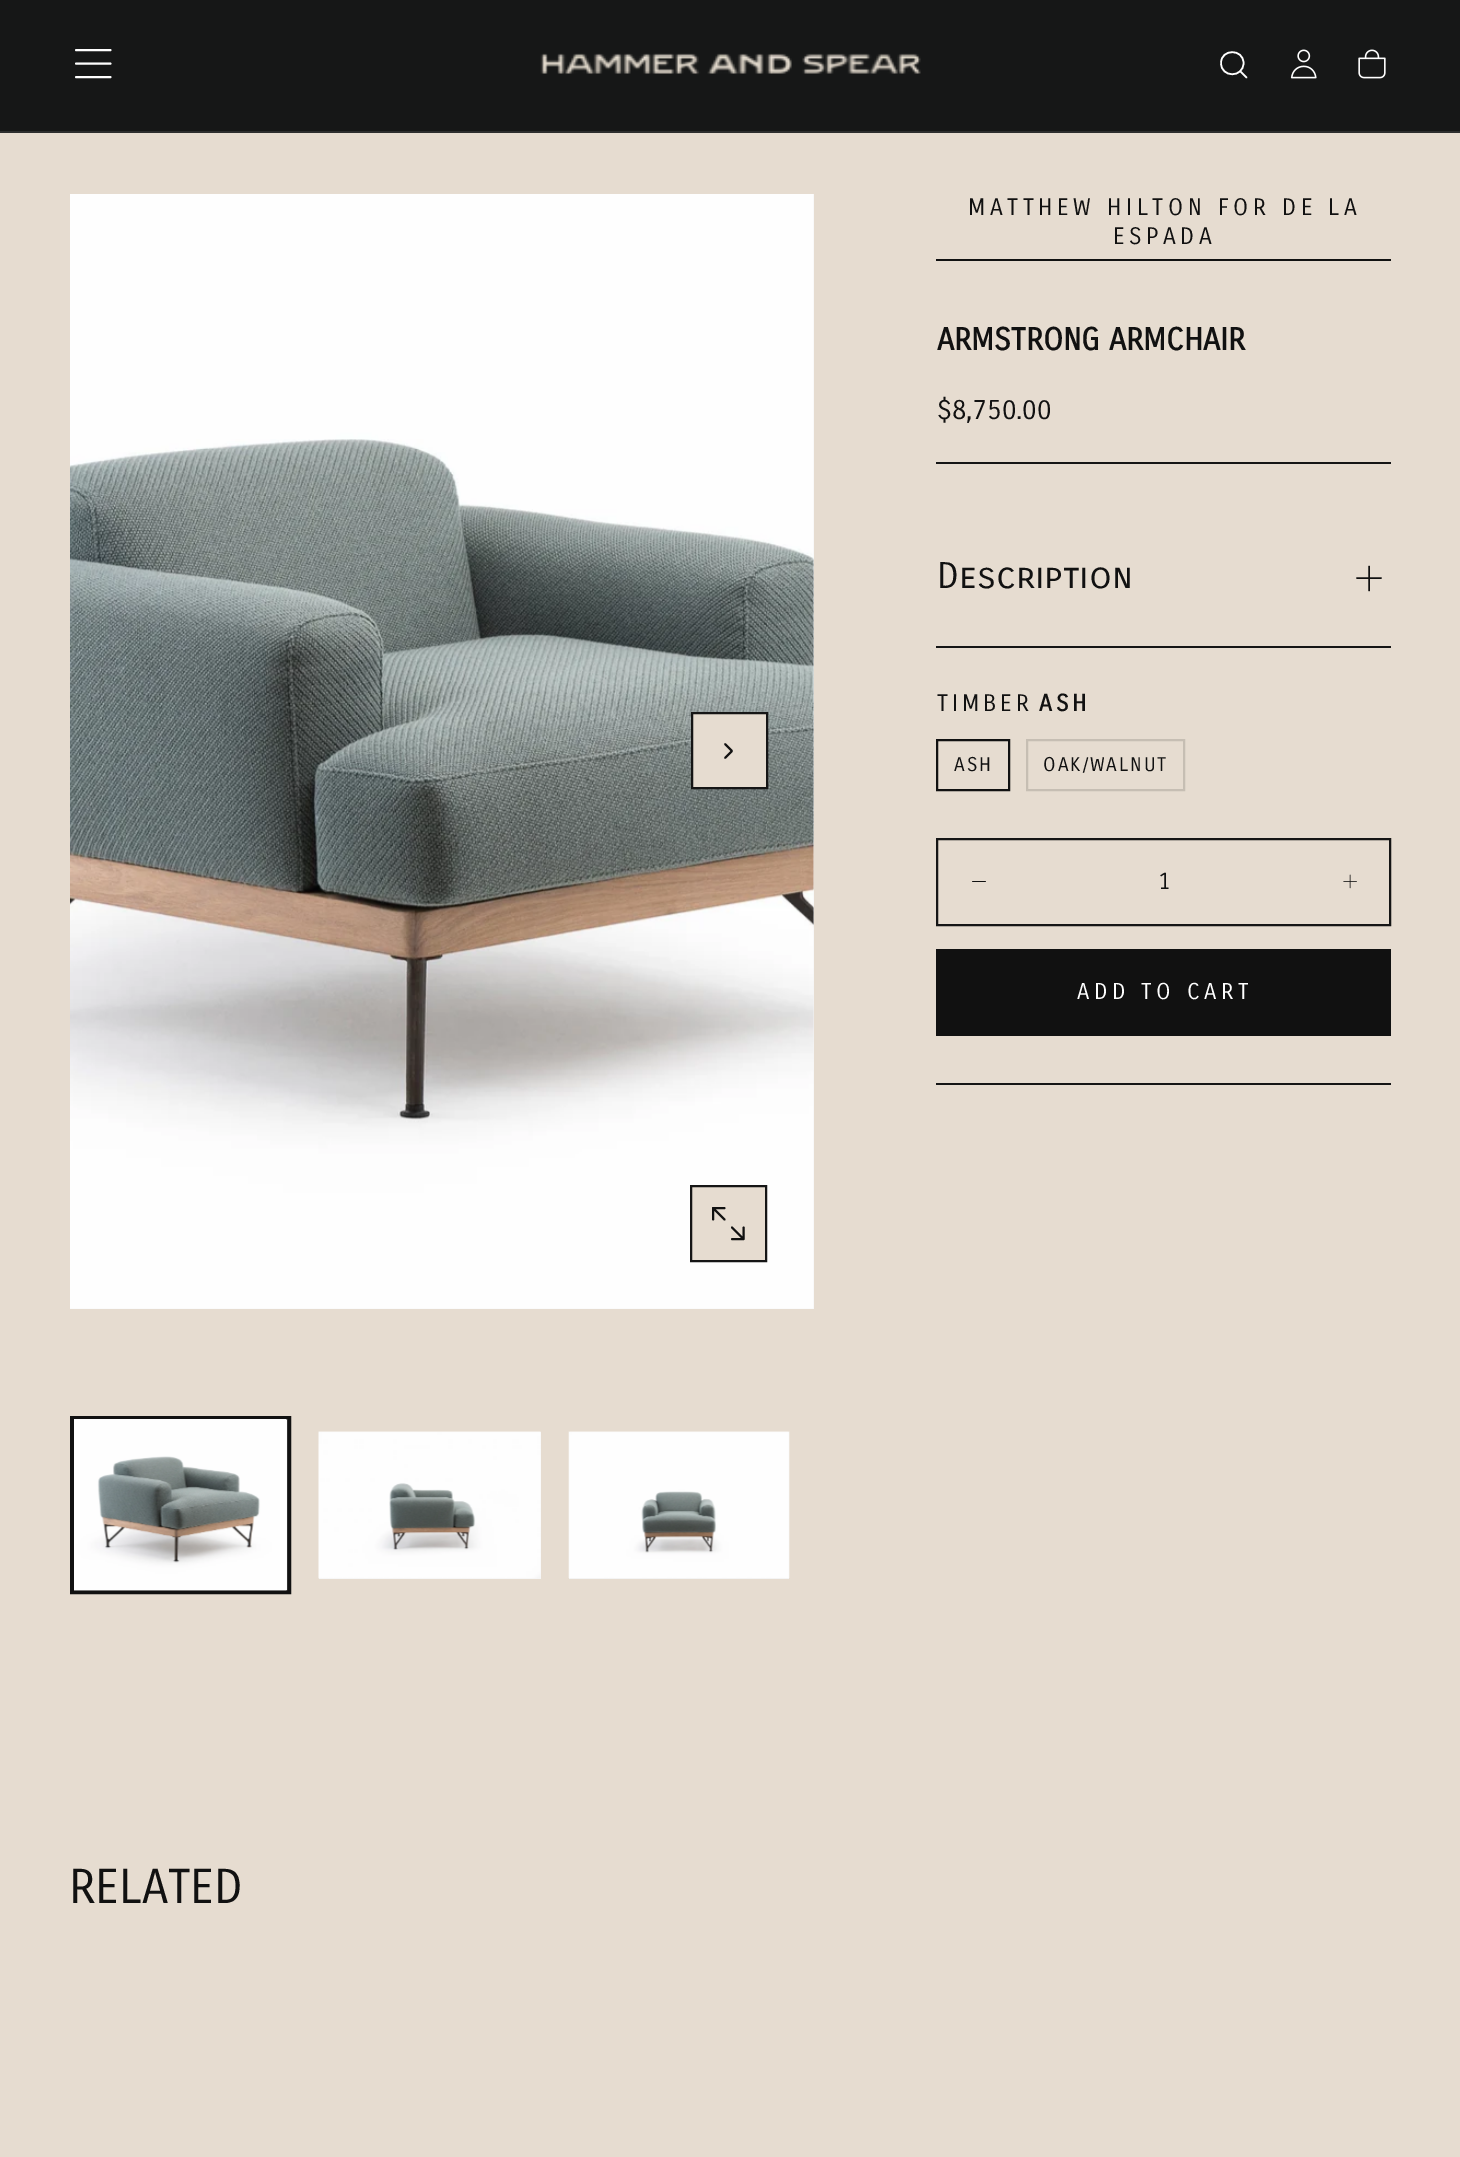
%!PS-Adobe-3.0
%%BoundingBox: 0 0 1460 2157
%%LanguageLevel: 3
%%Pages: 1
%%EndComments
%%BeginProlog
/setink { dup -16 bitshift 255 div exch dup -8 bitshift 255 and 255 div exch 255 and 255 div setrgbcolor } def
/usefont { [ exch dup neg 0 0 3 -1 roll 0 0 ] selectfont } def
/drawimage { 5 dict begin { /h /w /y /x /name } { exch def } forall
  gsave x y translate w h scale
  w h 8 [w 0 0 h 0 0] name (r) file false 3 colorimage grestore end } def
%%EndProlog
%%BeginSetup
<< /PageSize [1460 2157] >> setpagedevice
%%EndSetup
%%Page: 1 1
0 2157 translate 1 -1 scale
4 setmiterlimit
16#E6DCD0 setink
0 0 1460 2157 rectfill
16#161717 setink
0 0 1460 131 rectfill
16#2D2E2E setink
0 131 1460 2 rectfill
16#FFFFFF setink
1.9 setlinewidth
1 setlinecap
76 63.5 moveto 110.5 63.5 lineto 76 50 moveto 110.5 50 lineto 76 77 moveto 110.5 77 lineto stroke
(img1.raw) 540 53 381 22 drawimage
1.6 setlinewidth
1246.5 77.5 moveto 1240 71 lineto 1243.5 63 moveto 1243.5 78 1221 78 1221 63 curveto 1221 48.5 1243.5 48.5 1243.5 63 curveto closepath stroke
(img2.raw) 1290 49 27 30 drawimage
(img3.raw) 1358 49 28 30 drawimage
16#F4F4F4 setink
70 194 744 1115 rectfill
(img4.raw) 70 194 744 1115 drawimage
16#E6DCD0 setink
691 1186 moveto 766 1186 lineto 766 1261 lineto 691 1261 lineto closepath gsave fill grestore
16#151515 setink
2 setlinewidth
0 setlinecap
stroke
16#111111 setink
1.9 setlinewidth
1 setlinecap
1 setlinejoin
724.5 1219.5 moveto 713 1208 lineto 713 1219.5 moveto 713 1208 lineto 724.5 1208 lineto 732 1227.5 moveto 743.5 1239 lineto 743.5 1227.5 moveto 743.5 1239 lineto 732 1239 lineto stroke
16#E6DCD0 setink
692 713 moveto 767 713 lineto 767 788 lineto 692 788 lineto closepath gsave fill grestore
16#151515 setink
2 setlinewidth
0 setlinecap
0 setlinejoin
stroke
16#111111 setink
1.8 setlinewidth
1 setlinecap
1 setlinejoin
725 758 moveto 732 751 lineto 725 744 lineto stroke
16#F4F4F4 setink
286 1420 1 170 rectfill
16#111111 setink
4 setlinewidth
0 setlinecap
0 setlinejoin
72 1418 217 174 rectstroke
(img5.raw) 74 1419 214 172 drawimage
16#F4F4F4 setink
319 1432 222 147 rectfill
(img6.raw) 318 1431 223 148 drawimage
569 1432 220 147 rectfill
(img7.raw) 568 1431 222 147 drawimage
/CarroisGothicSC-Regular 23.1 usefont
16#111111 setink
968 215 moveto 4.6 0 (MATTHEW HILTON FOR DE LA) ashow
1113 244 moveto 4.6 0 (ESPADA) ashow
936 259 455 2 rectfill
/CarroisGothicSC-Bold 30.75 usefont
937 350 moveto (ARMSTRONG ARMCHAIR) show
/CarroisGothicSC-Regular 27 usefont
937 419 moveto ($8,750.00) show
16#151515 setink
936 462 455 2 rectfill
936 646 455 2 rectfill
/CarroisGothicSC-Regular 36 usefont
16#111111 setink
937 588 moveto (Description) show
1.5 setlinewidth
1 setlinecap
1357 578 moveto 1381 578 lineto 1369 566.5 moveto 1369 590.5 lineto stroke
/CarroisGothicSC-Regular 23.1 usefont
937 711 moveto 4 0 (TIMBER) ashow
/CarroisGothicSC-Bold 23.1 usefont
1039 711 moveto 4 0 (ASH) ashow
2 setlinewidth
0 setlinecap
937 740 72 50 rectstroke
/CarroisGothicSC-Regular 19.25 usefont
954 771 moveto 2 0 (ASH) ashow
16#C6BEB3 setink
1027 740 157 50 rectstroke
16#111111 setink
1043 771 moveto 2 0 (OAK/WALNUT) ashow
16#151515 setink
937 839 453 86 rectstroke
16#111111 setink
0.8 setlinewidth
1 setlinecap
972.5 881.5 moveto 985.5 881.5 lineto stroke
/CarroisGothicSC-Regular 23.1 usefont
1158 889 moveto (1) show
(img8.raw) 1343 874 14 15 drawimage
936 949 455 87 rectfill
/CarroisGothicSC-Regular 22.25 usefont
16#FFFFFF setink
1077 999 moveto 4.5 0 (ADD TO CART) ashow
16#151515 setink
936 1083 455 2 rectfill
/CarroisGothicSC-Regular 47.5 usefont
16#111111 setink
69 1903 moveto (RELATED) show
showpage
%%EOF
